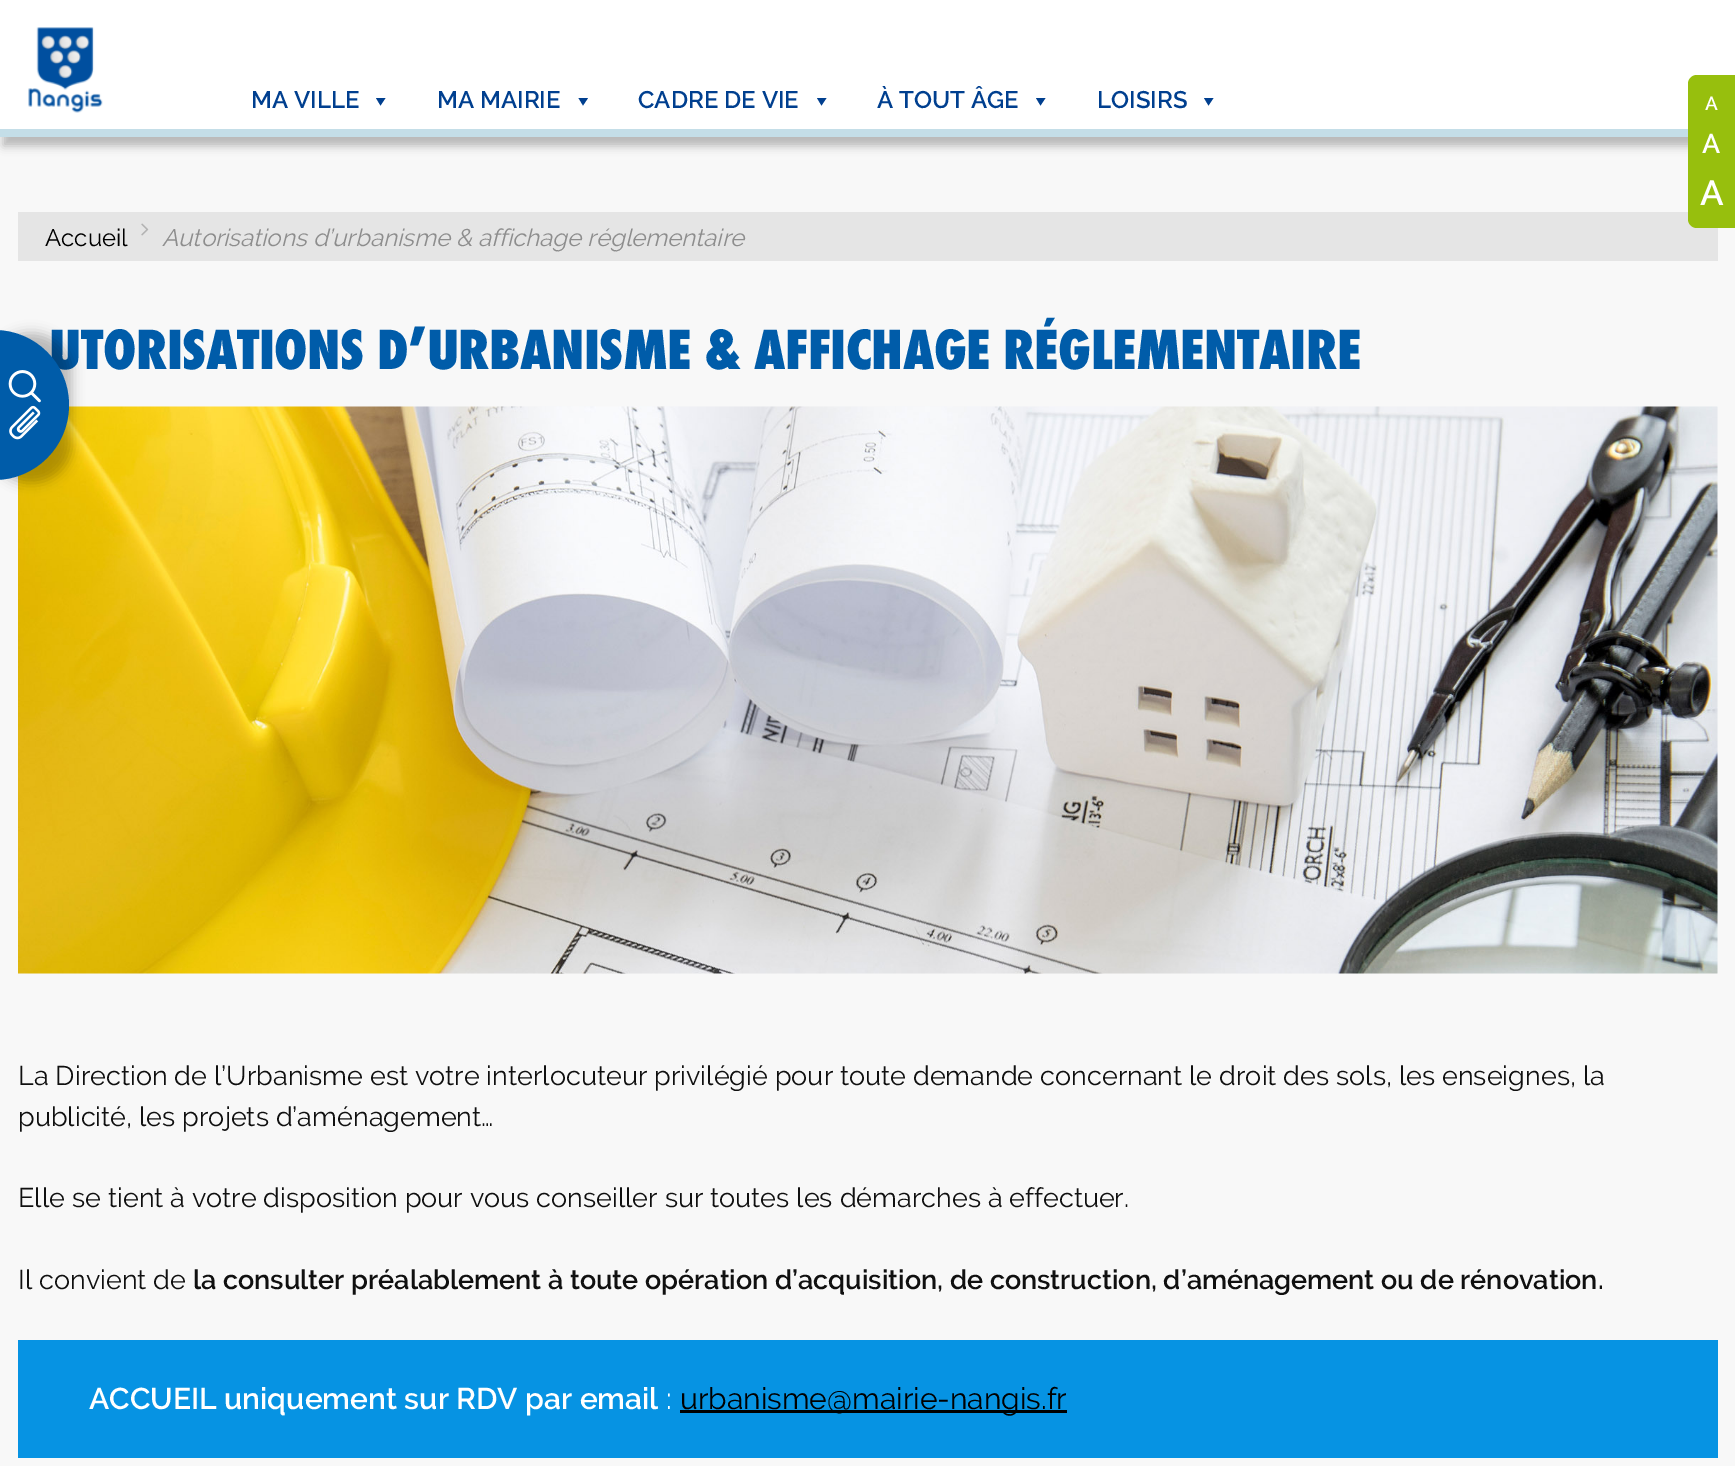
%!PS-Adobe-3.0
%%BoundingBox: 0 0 1735 1466
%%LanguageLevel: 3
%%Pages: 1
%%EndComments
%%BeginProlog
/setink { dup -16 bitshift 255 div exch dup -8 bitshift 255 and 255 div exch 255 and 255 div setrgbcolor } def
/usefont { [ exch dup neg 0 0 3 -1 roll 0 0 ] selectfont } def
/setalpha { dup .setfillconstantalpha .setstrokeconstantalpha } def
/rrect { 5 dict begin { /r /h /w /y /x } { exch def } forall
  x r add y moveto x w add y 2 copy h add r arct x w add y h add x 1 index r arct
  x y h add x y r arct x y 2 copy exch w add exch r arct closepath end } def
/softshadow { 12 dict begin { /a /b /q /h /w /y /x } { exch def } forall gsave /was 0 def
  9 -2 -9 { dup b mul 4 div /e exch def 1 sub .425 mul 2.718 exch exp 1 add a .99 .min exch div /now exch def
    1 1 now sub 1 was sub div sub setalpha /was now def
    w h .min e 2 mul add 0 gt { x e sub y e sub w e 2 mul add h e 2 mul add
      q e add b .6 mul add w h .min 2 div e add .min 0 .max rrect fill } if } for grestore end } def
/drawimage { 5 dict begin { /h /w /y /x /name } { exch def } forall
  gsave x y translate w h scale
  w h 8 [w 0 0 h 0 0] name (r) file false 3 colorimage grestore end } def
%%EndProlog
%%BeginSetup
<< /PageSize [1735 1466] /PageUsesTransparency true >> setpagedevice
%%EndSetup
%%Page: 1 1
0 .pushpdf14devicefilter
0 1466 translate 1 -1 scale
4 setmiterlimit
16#F8F8F8 setink
0 0 1735 1466 rectfill
16#000000 setink
3 15 1730 131 0 4.5 0.25 softshadow
16#FFFFFF setink
0 0 1735 129 rectfill
16#C4DEE8 setink
0 129 1688 8 rectfill
(img1.raw) 28 27 75 86 drawimage
/Raleway-SemiBold 24 usefont
16#003F8F setink
251 108 moveto (MA VILLE) show
385.5 98 moveto 380.5 105.5 lineto 376 98 lineto closepath fill
437 108 moveto (MA MAIRIE) show
588 98 moveto 583 105.5 lineto 578.5 98 lineto closepath fill
638 108 moveto (CADRE DE VIE) show
826.5 98 moveto 821.5 105.5 lineto 817 98 lineto closepath fill
877 108 moveto (À TOUT ÂGE) show
1045.5 98 moveto 1040.5 105.5 lineto 1036 98 lineto closepath fill
1097 108 moveto (LOISIRS) show
1213.5 98 moveto 1208.5 105.5 lineto 1204 98 lineto closepath fill
16#E5E5E5 setink
18 212 1700 49 rectfill
16#97BF0D setink
1697 75 moveto 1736 75 lineto 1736 228 lineto 1697 228 lineto 1692 228 1688 224 1688 219 curveto 1688 84 lineto 1688 79 1692 75 1697 75 curveto closepath fill
/Raleway-SemiBold 19 usefont
16#FFFFFF setink
1705 110 moveto (A) show
/Raleway-SemiBold 27 usefont
1702 153 moveto (A) show
/Raleway-SemiBold 35 usefont
1700 205 moveto (A) show
/Raleway-Regular 24 usefont
16#000000 setink
45 246 moveto (Accueil) show
(img2.raw) 141 223 8 13 drawimage
/Raleway-Italic 24 usefont
16#8D8D8D setink
162 246 moveto (Autorisations d’urbanisme & affichage réglementaire) show
/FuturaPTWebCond-ExtraBold 59 usefont
16#005CA9 setink
49 369 moveto -0.48 0 (UTORISATIONS D’URBANISME & AFFICHAGE RÉGLEMENTAIRE) ashow
(img3.raw) 18 406 1700 568 drawimage
/Raleway-Regular 27 usefont
16#101010 setink
[
    [(La Direction de l’Urbanisme est votre interlocuteur privilégié pour toute demande concernant le droit des sols, les enseignes, la) 18 1085]
    [(publicité, les projets d’aménagement…) 18 1126]
    [(Elle se tient à votre disposition pour vous conseiller sur toutes les démarches à effectuer.) 18 1207]
    [(Il convient de) 18 1289]
] { aload pop moveto show } forall
/Raleway-SemiBold 27 usefont
193 1289 moveto (la consulter préalablement à toute opération d’acquisition, de construction, d’aménagement ou de rénovation.) show
16#0693E3 setink
18 1340 1700 118 rectfill
/Raleway-SemiBold 30 usefont
16#FFFFFF setink
89 1409 moveto (ACCUEIL uniquement sur RDV par email) show
/Raleway-Regular 30 usefont
666 1409 moveto (:) show
16#000000 setink
680 1410 387 3 rectfill
680 1409 moveto (urbanisme@mairie-nangis.fr) show
-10 333 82 150 75 6 0.25 softshadow
16#005CA9 setink
-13 330 moveto -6 330 lineto 35.5 330 69 363.5 69 405 curveto 69 446.5 35.5 480 -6 480 curveto -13 480 lineto closepath fill
(img4.raw) 8 370 33 70 drawimage
.poppdf14devicefilter showpage
%%EOF
